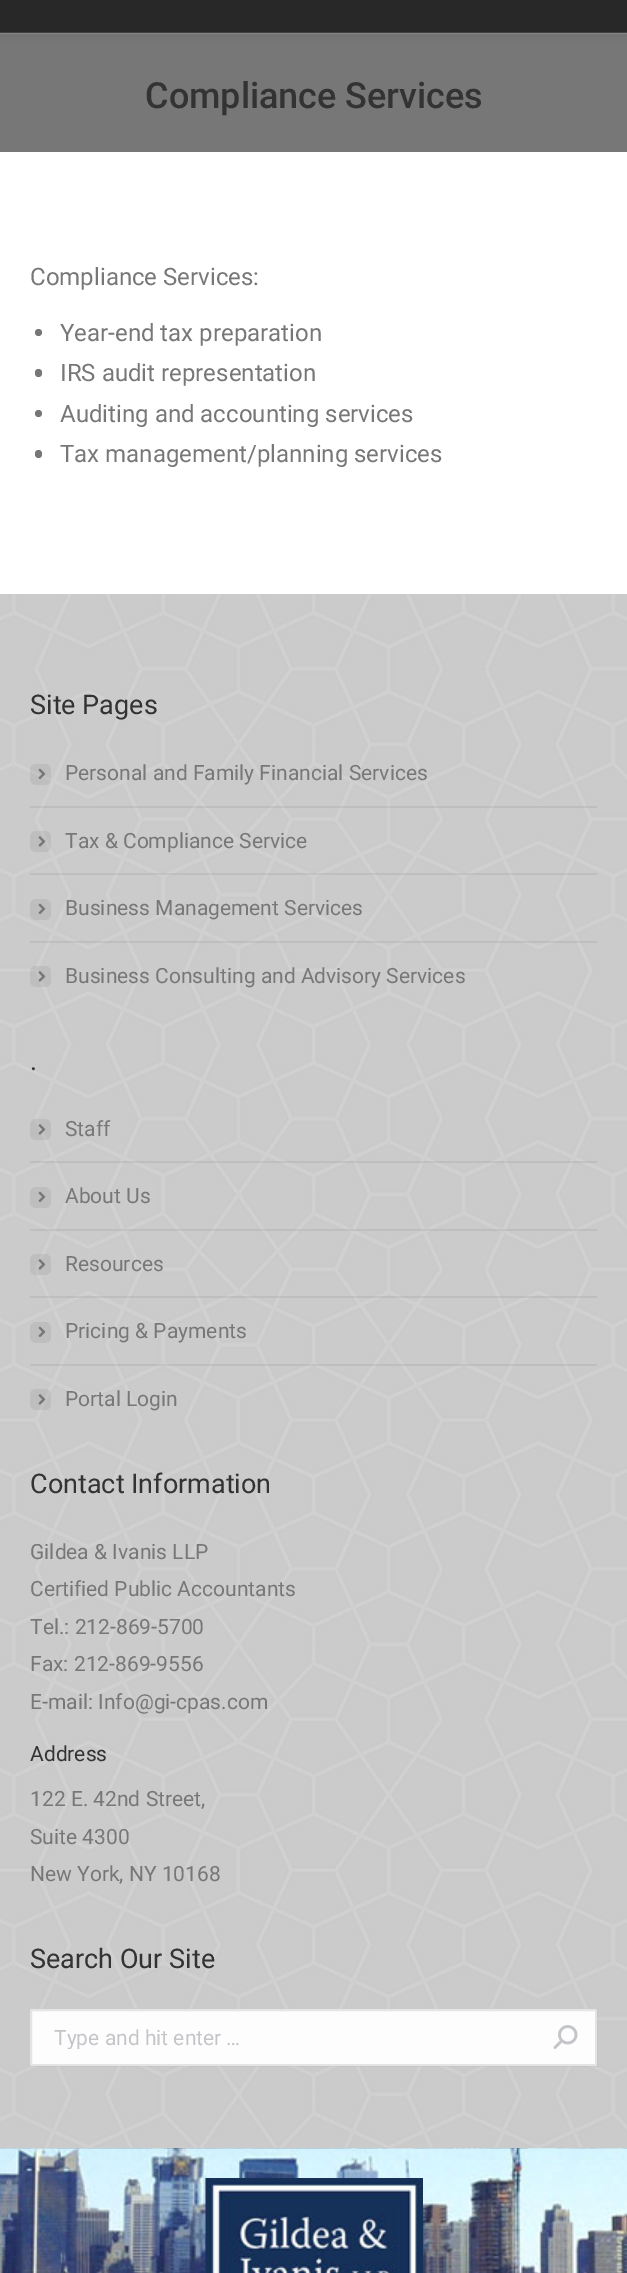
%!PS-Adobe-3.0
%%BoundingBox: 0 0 627 2273
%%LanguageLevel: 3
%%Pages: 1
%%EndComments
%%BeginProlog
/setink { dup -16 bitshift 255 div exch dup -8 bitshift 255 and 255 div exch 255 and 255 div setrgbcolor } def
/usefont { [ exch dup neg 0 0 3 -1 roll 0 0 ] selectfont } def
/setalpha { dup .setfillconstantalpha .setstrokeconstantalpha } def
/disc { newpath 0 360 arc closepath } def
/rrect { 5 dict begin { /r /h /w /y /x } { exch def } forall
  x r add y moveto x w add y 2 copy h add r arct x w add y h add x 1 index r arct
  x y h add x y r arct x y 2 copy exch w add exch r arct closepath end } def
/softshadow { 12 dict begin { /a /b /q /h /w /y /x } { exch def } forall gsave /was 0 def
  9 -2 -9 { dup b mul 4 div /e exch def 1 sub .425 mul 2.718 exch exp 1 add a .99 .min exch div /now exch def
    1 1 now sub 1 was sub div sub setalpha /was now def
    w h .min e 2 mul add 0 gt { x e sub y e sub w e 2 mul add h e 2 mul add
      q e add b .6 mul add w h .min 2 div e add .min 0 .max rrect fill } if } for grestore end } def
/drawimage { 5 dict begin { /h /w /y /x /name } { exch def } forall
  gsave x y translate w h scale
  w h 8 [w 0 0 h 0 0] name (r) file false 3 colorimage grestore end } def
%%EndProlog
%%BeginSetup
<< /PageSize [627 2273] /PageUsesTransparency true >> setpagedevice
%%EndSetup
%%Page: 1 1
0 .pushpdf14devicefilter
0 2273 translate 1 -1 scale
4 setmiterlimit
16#FFFFFF setink
0 0 627 2273 rectfill
16#777777 setink
0 33 627 119 rectfill
16#000000 setink
-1 -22 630 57 0 11 0.07 softshadow
16#282828 setink
0 0 627 33 rectfill
0.12 setalpha
16#FFFFFF setink
0 32 627 2 rectfill
/Roboto-Medium 36 usefont
1 setalpha
16#333333 setink
145 108 moveto (Compliance Services) show
/Roboto-Regular 24 usefont
16#777777 setink
30 285 moveto (Compliance Services:) show
38.5 332.5 3.5 disc fill
60 341 moveto (Year-end tax preparation) show
35 369 7 8 3.5 rrect fill
60 381 moveto (IRS audit representation) show
38.5 413.5 3.5 disc fill
60 422 moveto (Auditing and accounting services) show
35 450 7 8 3.5 rrect fill
60 462 moveto (Tax management/planning services) show
16#F6F6F6 setink
0 594 627 1554 rectfill
(img1.raw) 0 594 627 1554 drawimage
/Roboto-Regular 27 usefont
16#333333 setink
30 714 moveto (Site Pages) show
0.15 setalpha
16#777777 setink
30 764 21 21 6 rrect fill
1 setalpha
(img2.raw) 38 768 8 11 drawimage
/Roboto-Regular 21 usefont
65 780 moveto (Personal and Family Financial Services) show
0.15 setalpha
30 806 567 2 rectfill
30 831 21 21 6 rrect fill
1 setalpha
(img3.raw) 38 836 8 11 drawimage
65 848 moveto (Tax & Compliance Service) show
0.15 setalpha
30 873 567 2 rectfill
1 setalpha
16#BEBEBE setink
30 899 21 21 6 rrect fill
(img4.raw) 38 903 8 11 drawimage
16#777777 setink
65 915 moveto (Business Management Services) show
0.15 setalpha
30 941 567 2 rectfill
30 966 21 21 6 rrect fill
1 setalpha
(img5.raw) 38 971 8 11 drawimage
65 983 moveto (Business Consulting and Advisory Services) show
/Roboto-Regular 27 usefont
16#333333 setink
30 1070 moveto (.) show
0.15 setalpha
16#777777 setink
30 1119 21 21 6 rrect fill
1 setalpha
(img6.raw) 38 1124 8 11 drawimage
/Roboto-Regular 21 usefont
65 1136 moveto (Staff) show
0.15 setalpha
30 1161 567 2 rectfill
1 setalpha
16#BEBEBE setink
30 1187 21 21 6 rrect fill
(img4.raw) 38 1191 8 11 drawimage
16#777777 setink
65 1203 moveto (About Us) show
0.15 setalpha
30 1229 567 2 rectfill
30 1254 21 21 6 rrect fill
1 setalpha
(img7.raw) 38 1259 8 11 drawimage
65 1271 moveto (Resources) show
0.15 setalpha
30 1296 567 2 rectfill
1 setalpha
16#BEBEBE setink
30 1322 21 21 6 rrect fill
(img4.raw) 38 1326 8 11 drawimage
16#777777 setink
65 1338 moveto (Pricing & Payments) show
0.15 setalpha
30 1364 567 2 rectfill
30 1389 21 21 6 rrect fill
1 setalpha
(img8.raw) 38 1394 8 11 drawimage
65 1406 moveto (Portal Login) show
/Roboto-Regular 27 usefont
16#333333 setink
30 1493 moveto (Contact Information) show
/Roboto-Regular 21 usefont
16#777777 setink
[
    [(Gildea & Ivanis LLP) 30 1559]
    [(Certified Public Accountants) 30 1596]
    [(Tel.: 212-869-5700) 30 1634]
    [(Fax: 212-869-9556) 30 1671]
    [(E-mail: Info@gi-cpas.com) 30 1709]
] { aload pop moveto show } forall
16#333333 setink
30 1761 moveto (Address) show
16#777777 setink
[
    [(122 E. 42nd Street,) 30 1806]
    [(Suite 4300) 30 1844]
    [(New York, NY 10168) 30 1881]
] { aload pop moveto show } forall
/Roboto-Regular 27 usefont
16#333333 setink
30 1968 moveto (Search Our Site) show
16#FDFDFD setink
30 2009 567 57 1.5 rrect fill
0.12 setalpha
16#333333 setink
2 setlinewidth
31 2010 565 55 rectstroke
gsave
54 2025 519 24 rectclip
/Roboto-Regular 21 usefont
1 setalpha
16#C4C5C9 setink
54 2045 moveto (Type and hit enter …) show
grestore
1 setalpha
(img9.raw) 553 2025 25 24 drawimage
(img10.raw) 0 2148 627 125 drawimage
(img11.raw) 205 2178 218 95 drawimage
.poppdf14devicefilter showpage
%%EOF
